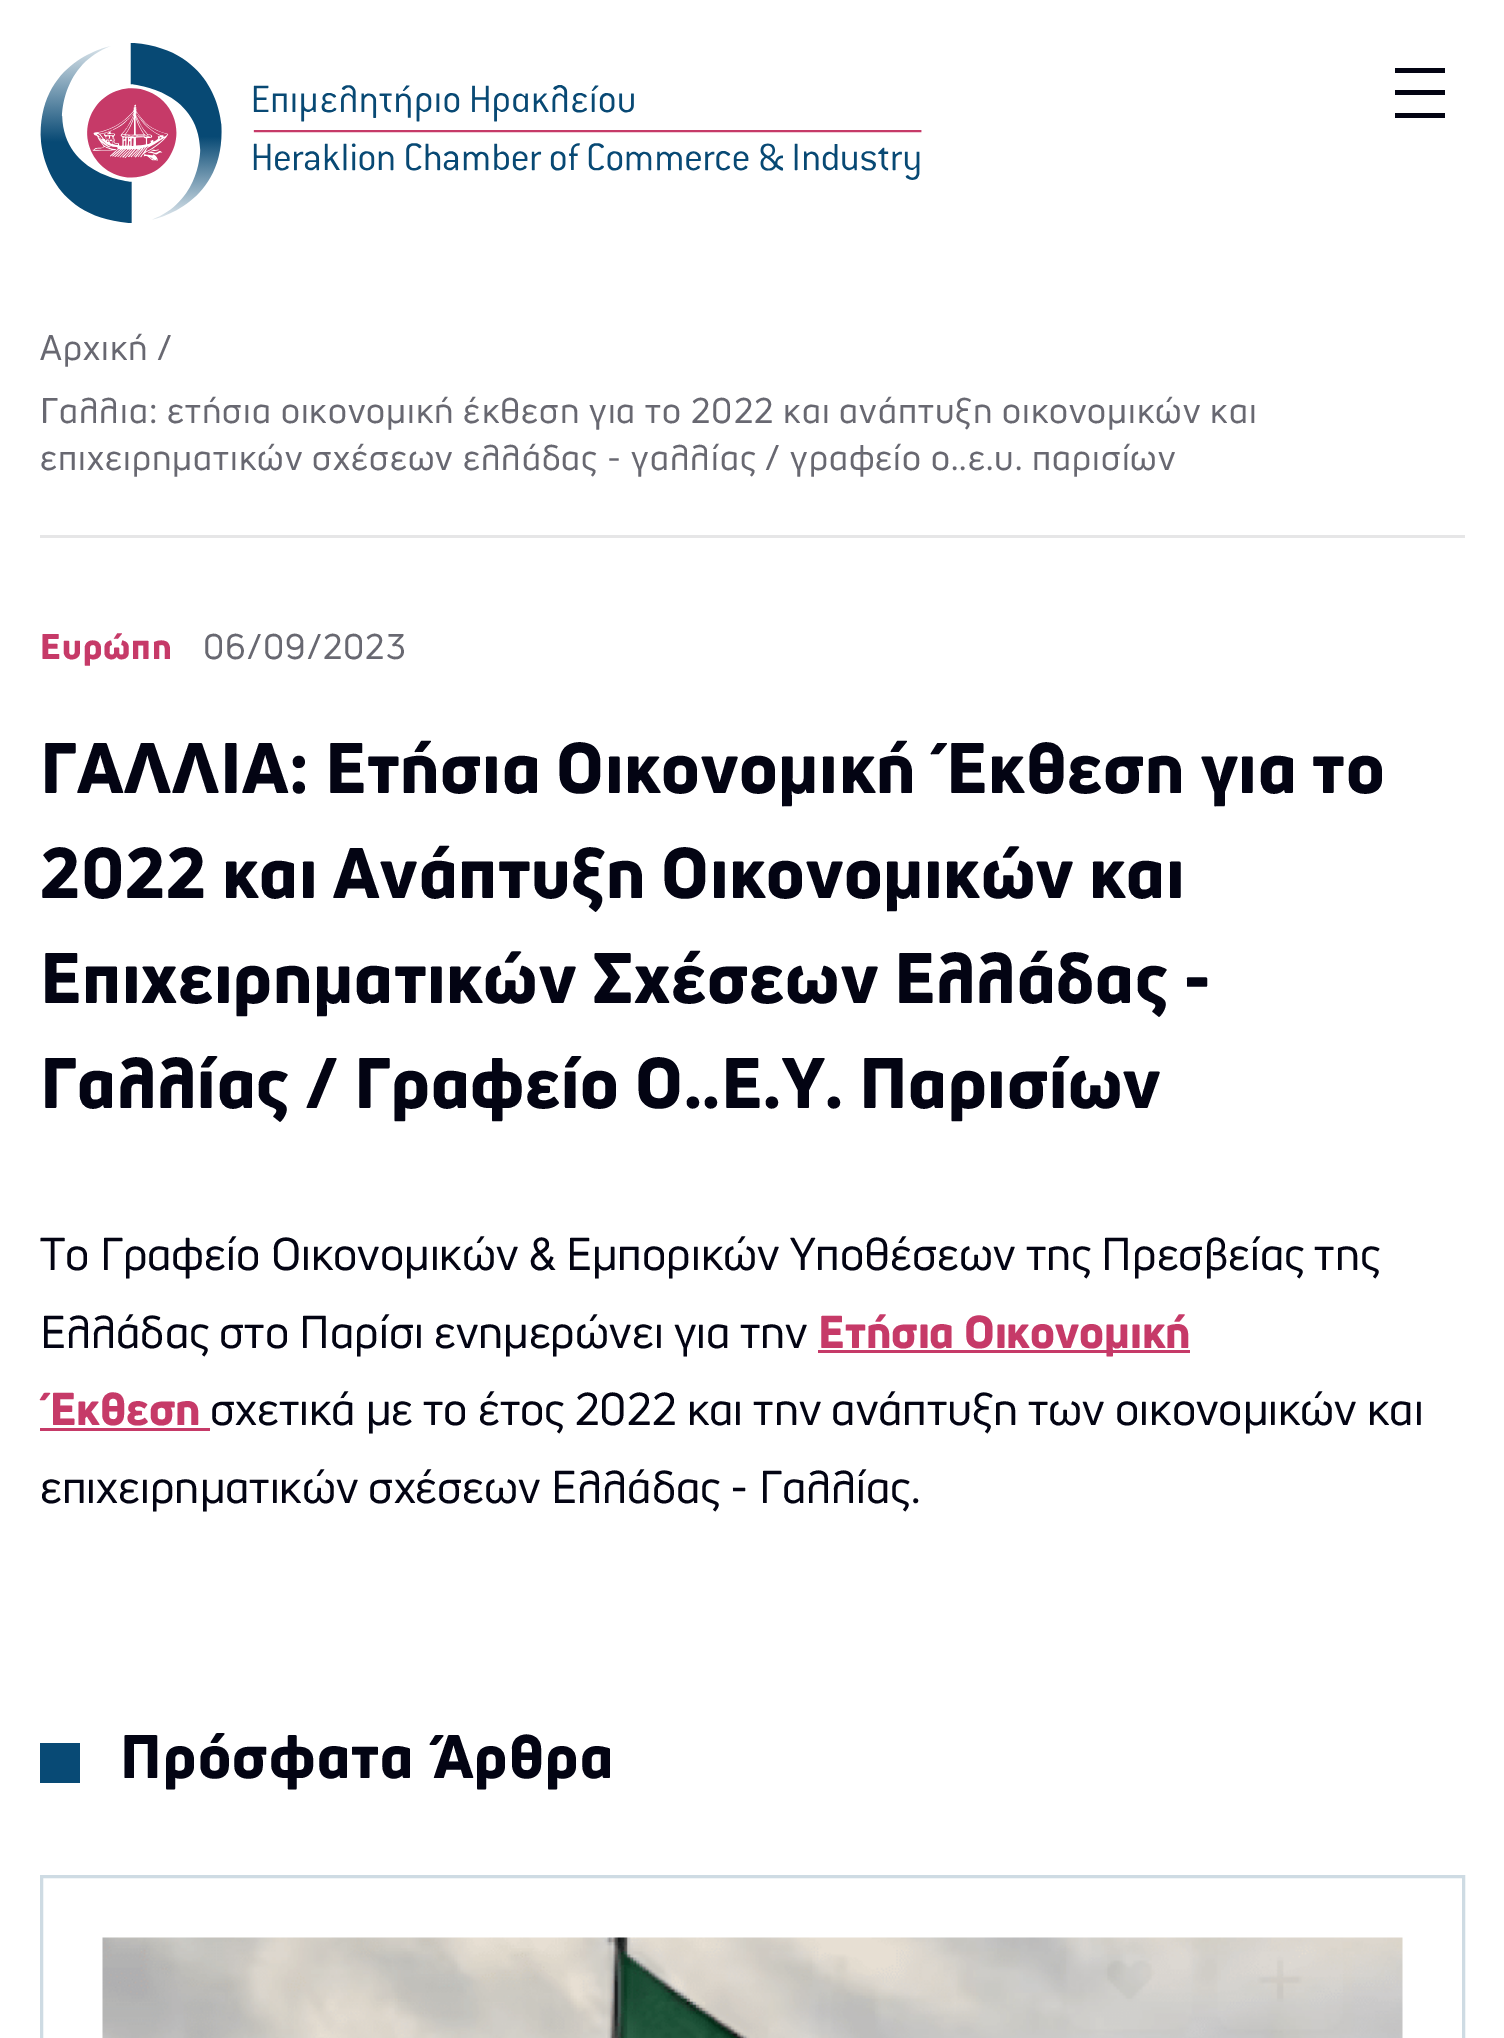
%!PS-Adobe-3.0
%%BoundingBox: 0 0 1504 2038
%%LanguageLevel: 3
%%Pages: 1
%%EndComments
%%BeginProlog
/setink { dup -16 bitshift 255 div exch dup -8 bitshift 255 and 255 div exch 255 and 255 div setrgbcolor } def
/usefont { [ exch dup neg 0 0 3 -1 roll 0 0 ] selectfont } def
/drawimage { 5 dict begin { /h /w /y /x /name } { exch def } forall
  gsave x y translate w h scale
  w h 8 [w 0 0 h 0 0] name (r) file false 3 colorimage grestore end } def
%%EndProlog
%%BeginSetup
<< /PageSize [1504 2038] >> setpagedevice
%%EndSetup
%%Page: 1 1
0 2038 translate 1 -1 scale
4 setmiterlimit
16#FFFFFF setink
0 0 1504 2038 rectfill
(img1.raw) 40 43 882 180 drawimage
[
    [1395 68 50 5 16#030413]
    [1395 90 50 5 16#030413]
    [1395 113 50 5 16#030413]
    [40 535 1425 3 16#E6E6E7]
] { aload pop setink rectfill } forall
/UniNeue-Regular 35 usefont
16#686871 setink
40 360 moveto 1.05 0 (Αρχική /) ashow
40 423 moveto 1.05 0 (Γαλλια: ετήσια οικονομική έκθεση για το 2022 και ανάπτυξη οικονομικών και) ashow
40 470 moveto 1.05 0 (επιχειρηματικών σχέσεων ελλάδας - γαλλίας / γραφείο ο..ε.υ. παρισίων) ashow
/UniNeue-Black 35 usefont
16#C63A68 setink
40 659 moveto 1.05 0 (Ευρώπη) ashow
/UniNeue-Regular 35 usefont
16#686871 setink
203 659 moveto 1.05 0 (06/09/2023) ashow
/UniNeue-Black 70 usefont
16#030413 setink
40 793 moveto 0.7 0 (ΓΑΛΛΙΑ: Ετήσια Οικονομική Έκθεση για το) ashow
40 898 moveto 0.7 0 (2022 και Ανάπτυξη Οικονομικών και) ashow
40 1003 moveto 0.7 0 (Επιχειρηματικών Σχέσεων Ελλάδας -) ashow
40 1108 moveto 0.7 0 (Γαλλίας / Γραφείο Ο..Ε.Υ. Παρισίων) ashow
/UniNeue-Regular 45 usefont
40 1270 moveto (Το Γραφείο Οικονομικών & Εμπορικών Υποθέσεων της Πρεσβείας της) show
40 1348 moveto (Ελλάδας στο Παρίσι ενημερώνει για την) show
16#C63A68 setink
818 1350 372 3 rectfill
/UniNeue-Black 45 usefont
818 1348 moveto (Ετήσια Οικονομική) show
40 1425 moveto (Έκθεση) show
40 1428 170 3 rectfill
/UniNeue-Regular 45 usefont
16#030413 setink
210 1425 moveto (σχετικά με το έτος 2022 και την ανάπτυξη των οικονομικών και) show
40 1503 moveto (επιχειρηματικών σχέσεων Ελλάδας - Γαλλίας.) show
16#084A75 setink
40 1743 40 40 rectfill
/UniNeue-Black 60 usefont
16#030413 setink
120 1778 moveto 1.25 0 (Πρόσφατα Άρθρα) ashow
16#CEDBE3 setink
3 setlinewidth
41.5 1876.5 1422 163 rectstroke
(img2.raw) 102 1937 1301 101 drawimage
showpage
%%EOF
